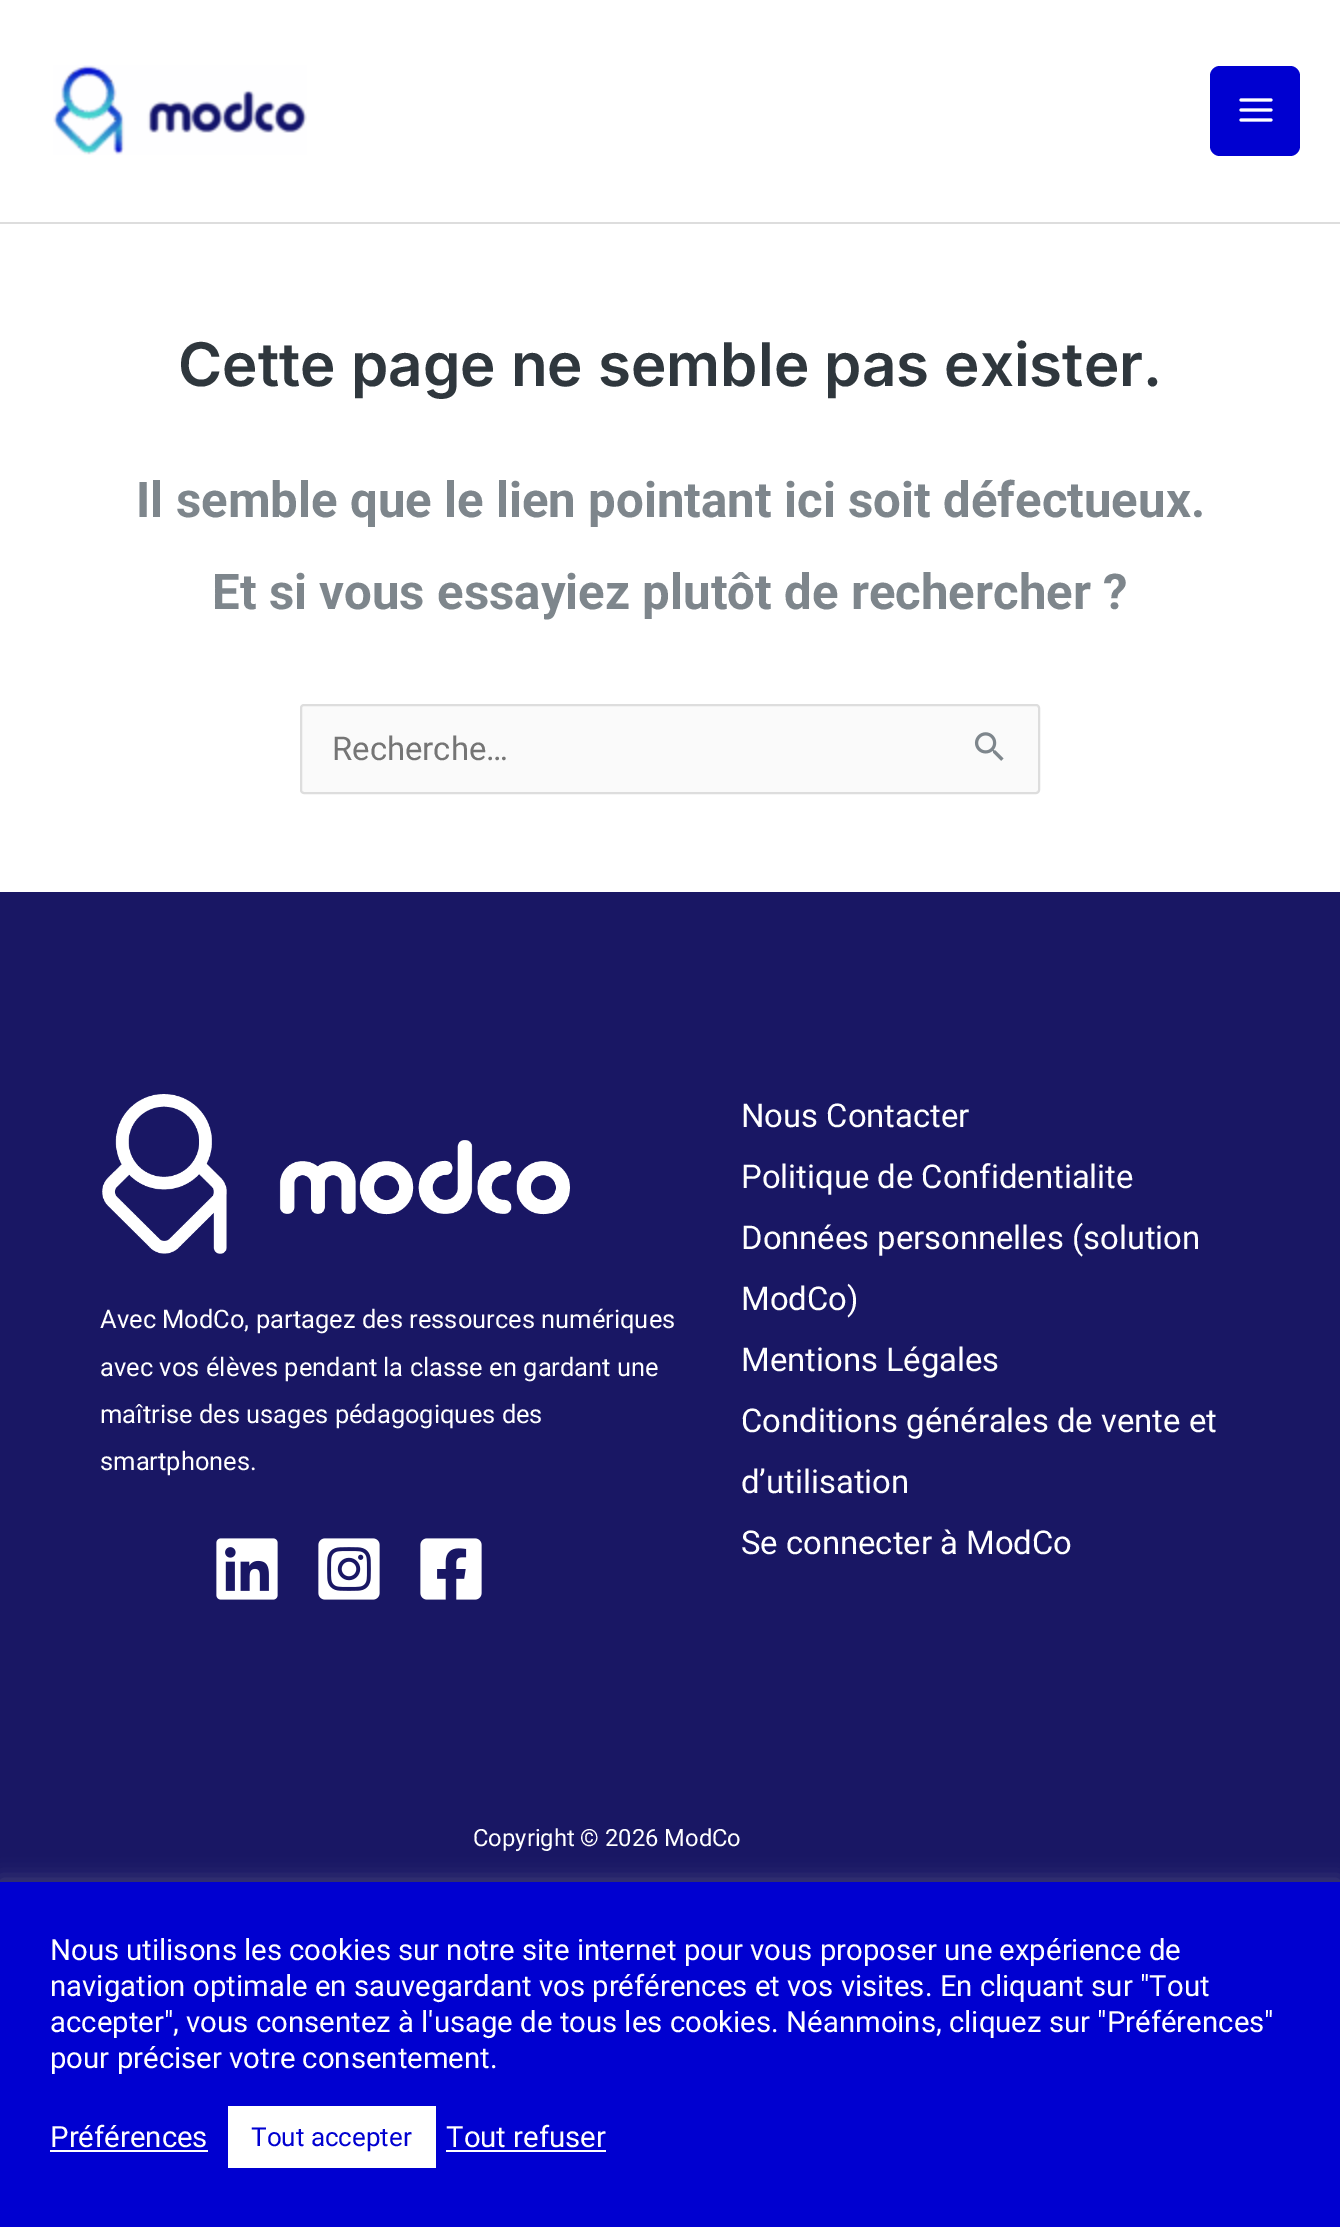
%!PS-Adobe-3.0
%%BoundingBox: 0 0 1340 2227
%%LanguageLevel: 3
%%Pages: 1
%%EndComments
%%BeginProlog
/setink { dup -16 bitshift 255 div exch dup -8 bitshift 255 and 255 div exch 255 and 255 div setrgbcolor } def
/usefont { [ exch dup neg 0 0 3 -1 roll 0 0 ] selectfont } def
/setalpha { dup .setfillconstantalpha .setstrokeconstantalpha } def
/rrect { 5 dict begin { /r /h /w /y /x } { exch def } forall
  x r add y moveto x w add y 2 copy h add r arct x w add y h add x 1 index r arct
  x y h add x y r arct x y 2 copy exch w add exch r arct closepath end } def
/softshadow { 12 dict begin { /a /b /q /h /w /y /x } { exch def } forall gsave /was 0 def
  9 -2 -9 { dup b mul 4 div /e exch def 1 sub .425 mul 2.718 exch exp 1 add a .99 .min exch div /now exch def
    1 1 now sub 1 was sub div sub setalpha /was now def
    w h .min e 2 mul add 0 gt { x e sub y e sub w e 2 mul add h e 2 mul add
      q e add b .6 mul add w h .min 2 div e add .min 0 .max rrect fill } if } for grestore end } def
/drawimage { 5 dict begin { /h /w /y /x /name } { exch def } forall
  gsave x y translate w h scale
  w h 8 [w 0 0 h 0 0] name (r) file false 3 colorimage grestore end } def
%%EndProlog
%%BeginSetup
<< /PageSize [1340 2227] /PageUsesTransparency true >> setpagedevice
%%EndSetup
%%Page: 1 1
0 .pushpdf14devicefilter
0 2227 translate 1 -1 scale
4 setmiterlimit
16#FFFFFF setink
0 0 1340 2227 rectfill
16#DDDDDD setink
0 222 1340 2 rectfill
(img1.raw) 53 65 254 90 drawimage
16#0000D0 setink
1210 66 90 90 10 rrect fill
(img2.raw) 1239 98 34 24 drawimage
/Inter-SemiBold 60 usefont
16#2F373D setink
178 386 moveto (Cette page ne semble pas exister.) show
/Roboto-Bold 49.25 usefont
16#7E868C setink
136 517 moveto (Il semble que le lien pointant ici soit défectueux.) show
212 609 moveto (Et si vous essayiez plutôt de rechercher ?) show
16#FAFAFA setink
301 705 738 88 3 rrect gsave fill grestore
16#DDDDDD setink
2 setlinewidth
stroke
/Roboto-Regular 32.8 usefont
16#757575 setink
332 760 moveto (Recherche…) show
(img3.raw) 974 732 30 29 drawimage
16#191764 setink
0 892 1340 990 rectfill
(img4.raw) 102 1094 468 160 drawimage
/Roboto-Regular 25.5 usefont
16#FFFFFF setink
[
    [(Avec ModCo, partagez des ressources numériques) 100 1328]
    [(avec vos élèves pendant la classe en gardant une) 100 1376]
    [(maîtrise des usages pédagogiques des) 100 1423]
    [(smartphones.) 100 1470]
] { aload pop moveto show } forall
(img5.raw) 216 1538 62 62 drawimage
(img6.raw) 318 1538 62 62 drawimage
(img7.raw) 420 1538 62 62 drawimage
/Roboto-Regular 32.8 usefont
[
    [(Nous Contacter) 741 1127]
    [(Politique de Confidentialite) 741 1188]
    [(Données personnelles \(solution) 741 1249]
    [(ModCo\)) 741 1310]
    [(Mentions Légales) 741 1371]
    [(Conditions générales de vente et) 741 1432]
    [(d’utilisation) 741 1493]
    [(Se connecter à ModCo) 741 1554]
] { aload pop moveto show } forall
/Roboto-Regular 23.75 usefont
473 1846 moveto (Copyright © 2026 ModCo) show
16#ACABAB setink
0 1880 1340 346 0 10 0.3 softshadow
16#0000D0 setink
0 1882 1340 345 rectfill
/Roboto-Regular 29.35 usefont
16#FFFFFF setink
[
    [(Nous utilisons les cookies sur notre site internet pour vous proposer une expérience de) 50 1960]
    [(navigation optimale en sauvegardant vos préférences et vos visites. En cliquant sur "Tout) 50 1996]
    [(accepter", vous consentez à l'usage de tous les cookies. Néanmoins, cliquez sur "Préférences") 50 2032]
    [(pour préciser votre consentement.) 50 2068]
    [(Préférences) 50 2147]
] { aload pop moveto show } forall
50 2150 158 2 rectfill
228 2106 208 62 rectfill
/Roboto-Regular 26 usefont
16#0000D0 setink
251 2146 moveto (Tout accepter) show
/Roboto-Regular 29.35 usefont
16#FFFFFF setink
446 2147 moveto (Tout refuser) show
446 2150 160 2 rectfill
.poppdf14devicefilter showpage
%%EOF
